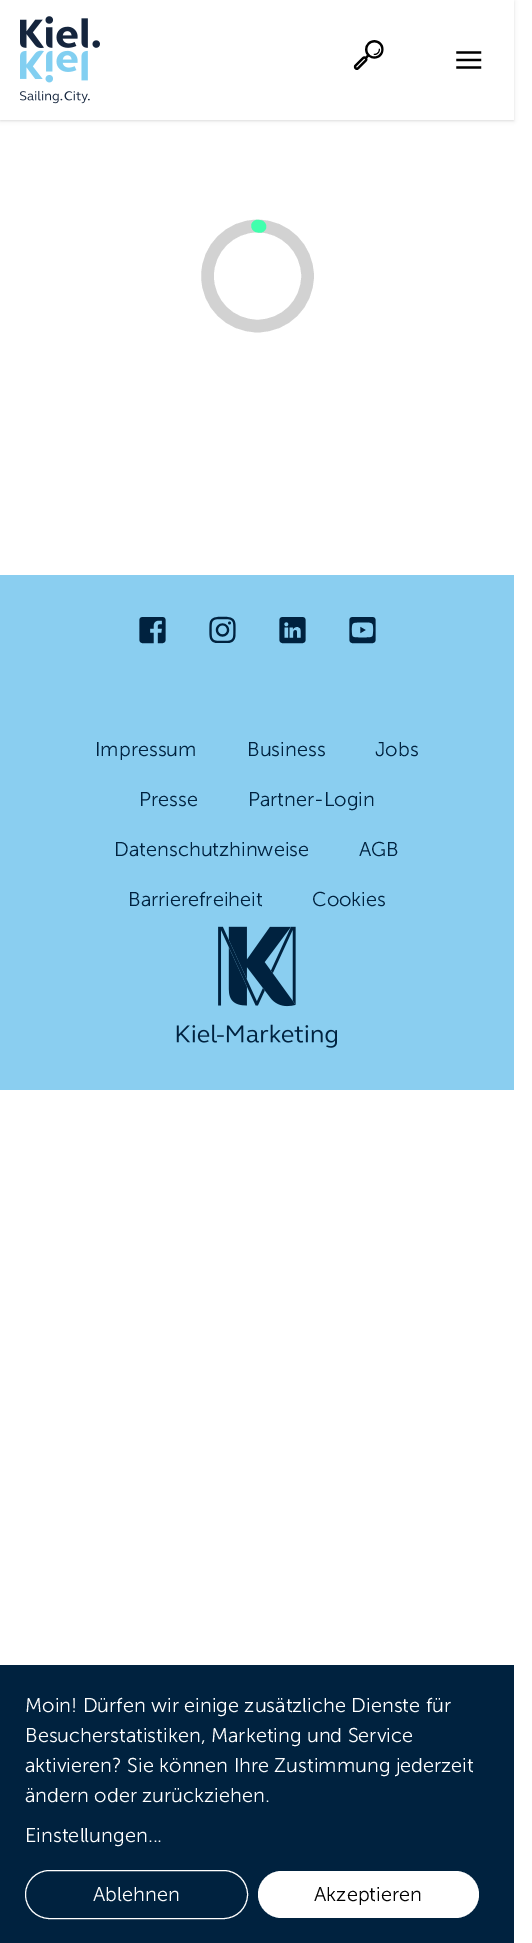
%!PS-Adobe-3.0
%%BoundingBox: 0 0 532 1943
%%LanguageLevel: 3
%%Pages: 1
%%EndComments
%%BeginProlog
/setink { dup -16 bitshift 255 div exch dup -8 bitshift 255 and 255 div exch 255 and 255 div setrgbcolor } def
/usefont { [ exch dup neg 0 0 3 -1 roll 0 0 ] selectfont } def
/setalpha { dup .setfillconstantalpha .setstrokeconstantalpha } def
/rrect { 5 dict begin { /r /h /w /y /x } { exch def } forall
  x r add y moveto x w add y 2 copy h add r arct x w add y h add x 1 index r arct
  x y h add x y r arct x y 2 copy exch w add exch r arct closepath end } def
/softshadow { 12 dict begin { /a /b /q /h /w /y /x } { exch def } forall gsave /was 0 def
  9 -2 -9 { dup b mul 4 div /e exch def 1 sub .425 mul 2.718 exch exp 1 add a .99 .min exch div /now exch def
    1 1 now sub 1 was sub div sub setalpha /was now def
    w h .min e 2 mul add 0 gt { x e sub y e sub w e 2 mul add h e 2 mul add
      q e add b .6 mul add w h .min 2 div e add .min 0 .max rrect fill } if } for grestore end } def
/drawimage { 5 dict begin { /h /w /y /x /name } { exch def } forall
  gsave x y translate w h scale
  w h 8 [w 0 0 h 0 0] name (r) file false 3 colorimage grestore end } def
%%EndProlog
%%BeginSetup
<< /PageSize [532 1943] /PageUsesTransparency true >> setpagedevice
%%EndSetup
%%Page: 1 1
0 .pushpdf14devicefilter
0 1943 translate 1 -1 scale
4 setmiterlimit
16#FFFFFF setink
0 0 532 1943 rectfill
16#000000 setink
1 3 512 117 0 1 0.1 softshadow
0 1 514 120 0 2 0.1 softshadow
16#FFFFFF setink
0 0 514 120 rectfill
(img1.raw) 20 16 80 88 drawimage
(img2.raw) 353 40 31 30 drawimage
(img3.raw) 456 51 26 18 drawimage
16#D2D2D2 setink
12.5 setlinewidth
257.5 226 moveto 285 226 307.5 248.5 307.5 276 curveto 307.5 304 285 326 257.5 326 curveto 230 326 207.5 304 207.5 276 curveto 207.5 248.5 230 226 257.5 226 curveto stroke
16#41FFAD setink
1 setlinecap
257.5 226 moveto 260 226.5 lineto stroke
16#8ACEF0 setink
0 575 514 515 rectfill
(img4.raw) 139 617 27 27 drawimage
(img5.raw) 209 616 27 27 drawimage
(img6.raw) 279 617 27 27 drawimage
(img7.raw) 349 617 27 27 drawimage
/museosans-Light 20 usefont
16#00223F setink
[
    [(Impressum) 95 756]
    [(Business) 247 756]
    [(Jobs) 375 756]
    [(Presse) 139 806]
    [(Partner-Login) 248 806]
    [(Datenschutzhinweise) 114 856]
    [(AGB) 359 856]
    [(Barrierefreiheit) 128 906]
    [(Cookies) 312 906]
] { aload pop moveto show } forall
(img8.raw) 176 926 161 122 drawimage
0 1665 514 278 rectfill
16#FFFFFF setink
[
    [(Moin! Dürfen wir einige zusätzliche Dienste für) 25 1712]
    [(Besucherstatistiken, Marketing und Service) 25 1742]
    [(aktivieren? Sie können Ihre Zustimmung jederzeit) 25 1772]
    [(ändern oder zurückziehen.) 25 1802]
    [(Einstellungen...) 25 1842]
] { aload pop moveto show } forall
1 setlinewidth
0 setlinecap
25.5 1870.5 222 48 24 rrect stroke
93 1901 moveto (Ablehnen) show
258 1871 221 47 23.5 rrect fill
16#000000 setink
314 1901 moveto (Akzeptieren) show
.poppdf14devicefilter showpage
%%EOF
